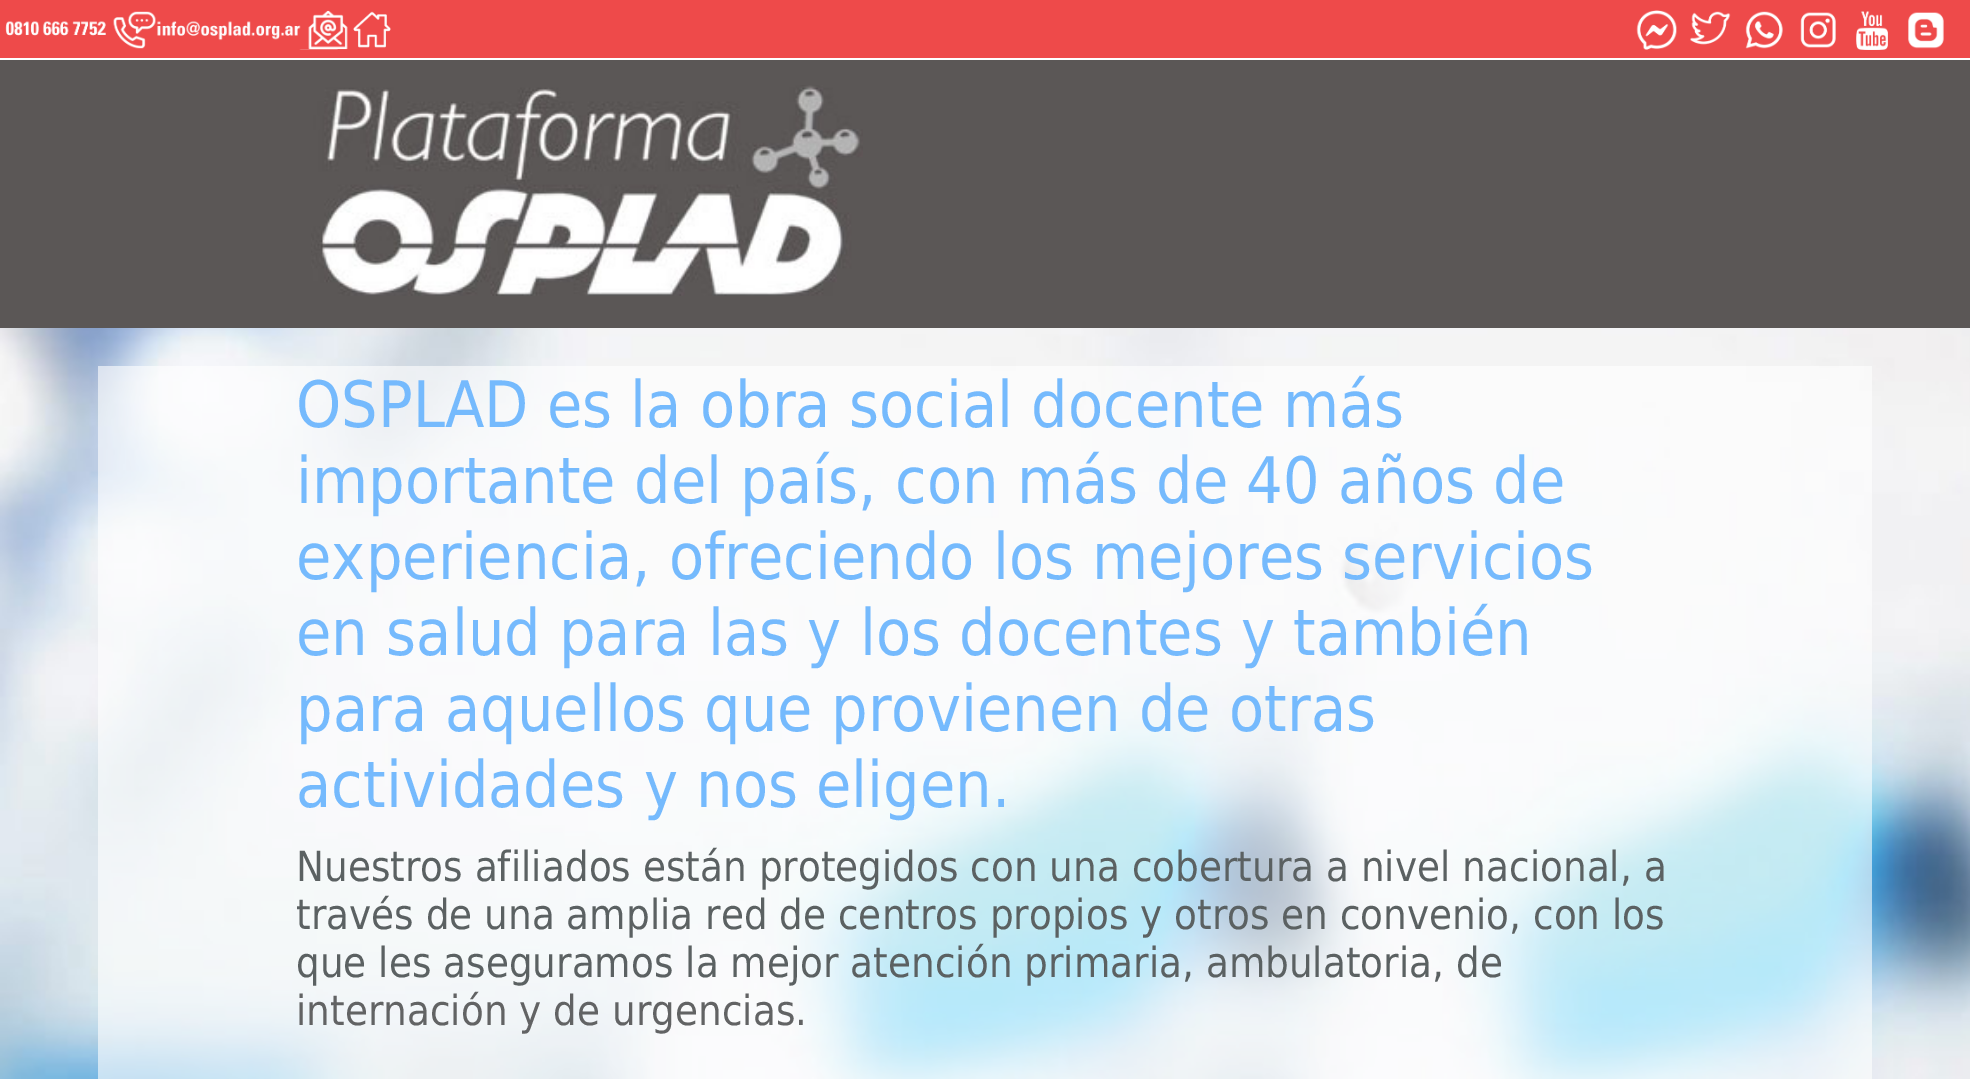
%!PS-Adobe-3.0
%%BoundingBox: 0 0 1970 1079
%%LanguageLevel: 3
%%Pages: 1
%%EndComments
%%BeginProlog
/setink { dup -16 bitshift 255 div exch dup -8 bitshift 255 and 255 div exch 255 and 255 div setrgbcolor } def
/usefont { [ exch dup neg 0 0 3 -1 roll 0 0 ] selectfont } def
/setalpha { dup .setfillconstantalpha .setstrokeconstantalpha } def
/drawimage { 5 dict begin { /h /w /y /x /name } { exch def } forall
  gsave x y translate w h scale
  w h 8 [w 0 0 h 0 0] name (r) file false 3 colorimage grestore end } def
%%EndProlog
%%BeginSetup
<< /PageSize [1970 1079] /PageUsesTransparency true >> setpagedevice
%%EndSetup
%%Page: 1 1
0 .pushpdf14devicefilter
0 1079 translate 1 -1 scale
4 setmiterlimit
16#FFFFFF setink
0 0 1970 1079 rectfill
16#EE4A4A setink
0 0 1970 58 rectfill
(img1.raw) 5 11 151 38 drawimage
(img2.raw) 157 10 191 40 drawimage
(img3.raw) 353 11 38 37 drawimage
(img4.raw) 1636 10 41 40 drawimage
(img5.raw) 1690 11 41 34 drawimage
(img6.raw) 1745 11 38 38 drawimage
(img7.raw) 1800 12 36 36 drawimage
(img8.raw) 1856 11 32 39 drawimage
(img9.raw) 1908 12 36 37 drawimage
16#5B5756 setink
0 60 1970 268 rectfill
(img10.raw) 311 85 552 211 drawimage
(img11.raw) 0 328 1970 751 drawimage
0.6 setalpha
16#FFFFFF setink
98 366 1774 713 rectfill
/DejaVuSans-Regular 64 usefont
1 setalpha
16#75BAFD setink
[
    [(OSPLAD es la obra social docente más) 296 427]
    [(importante del país, con más de 40 años de) 296 503]
    [(experiencia, ofreciendo los mejores servicios) 296 579]
    [(en salud para las y los docentes y también) 296 655]
    [(para aquellos que provienen de otras) 296 731]
    [(actividades y nos eligen.) 296 807]
] { aload pop moveto show } forall
/DejaVuSans-Regular 41.6 usefont
16#5B6162 setink
[
    [(Nuestros afiliados están protegidos con una cobertura a nivel nacional, a) 296 881]
    [(través de una amplia red de centros propios y otros en convenio, con los) 296 929]
    [(que les aseguramos la mejor atención primaria, ambulatoria, de) 296 977]
] { aload pop moveto show } forall
16#626364 setink
296 1025 moveto (internación y de urgencias.) show
.poppdf14devicefilter showpage
%%EOF
